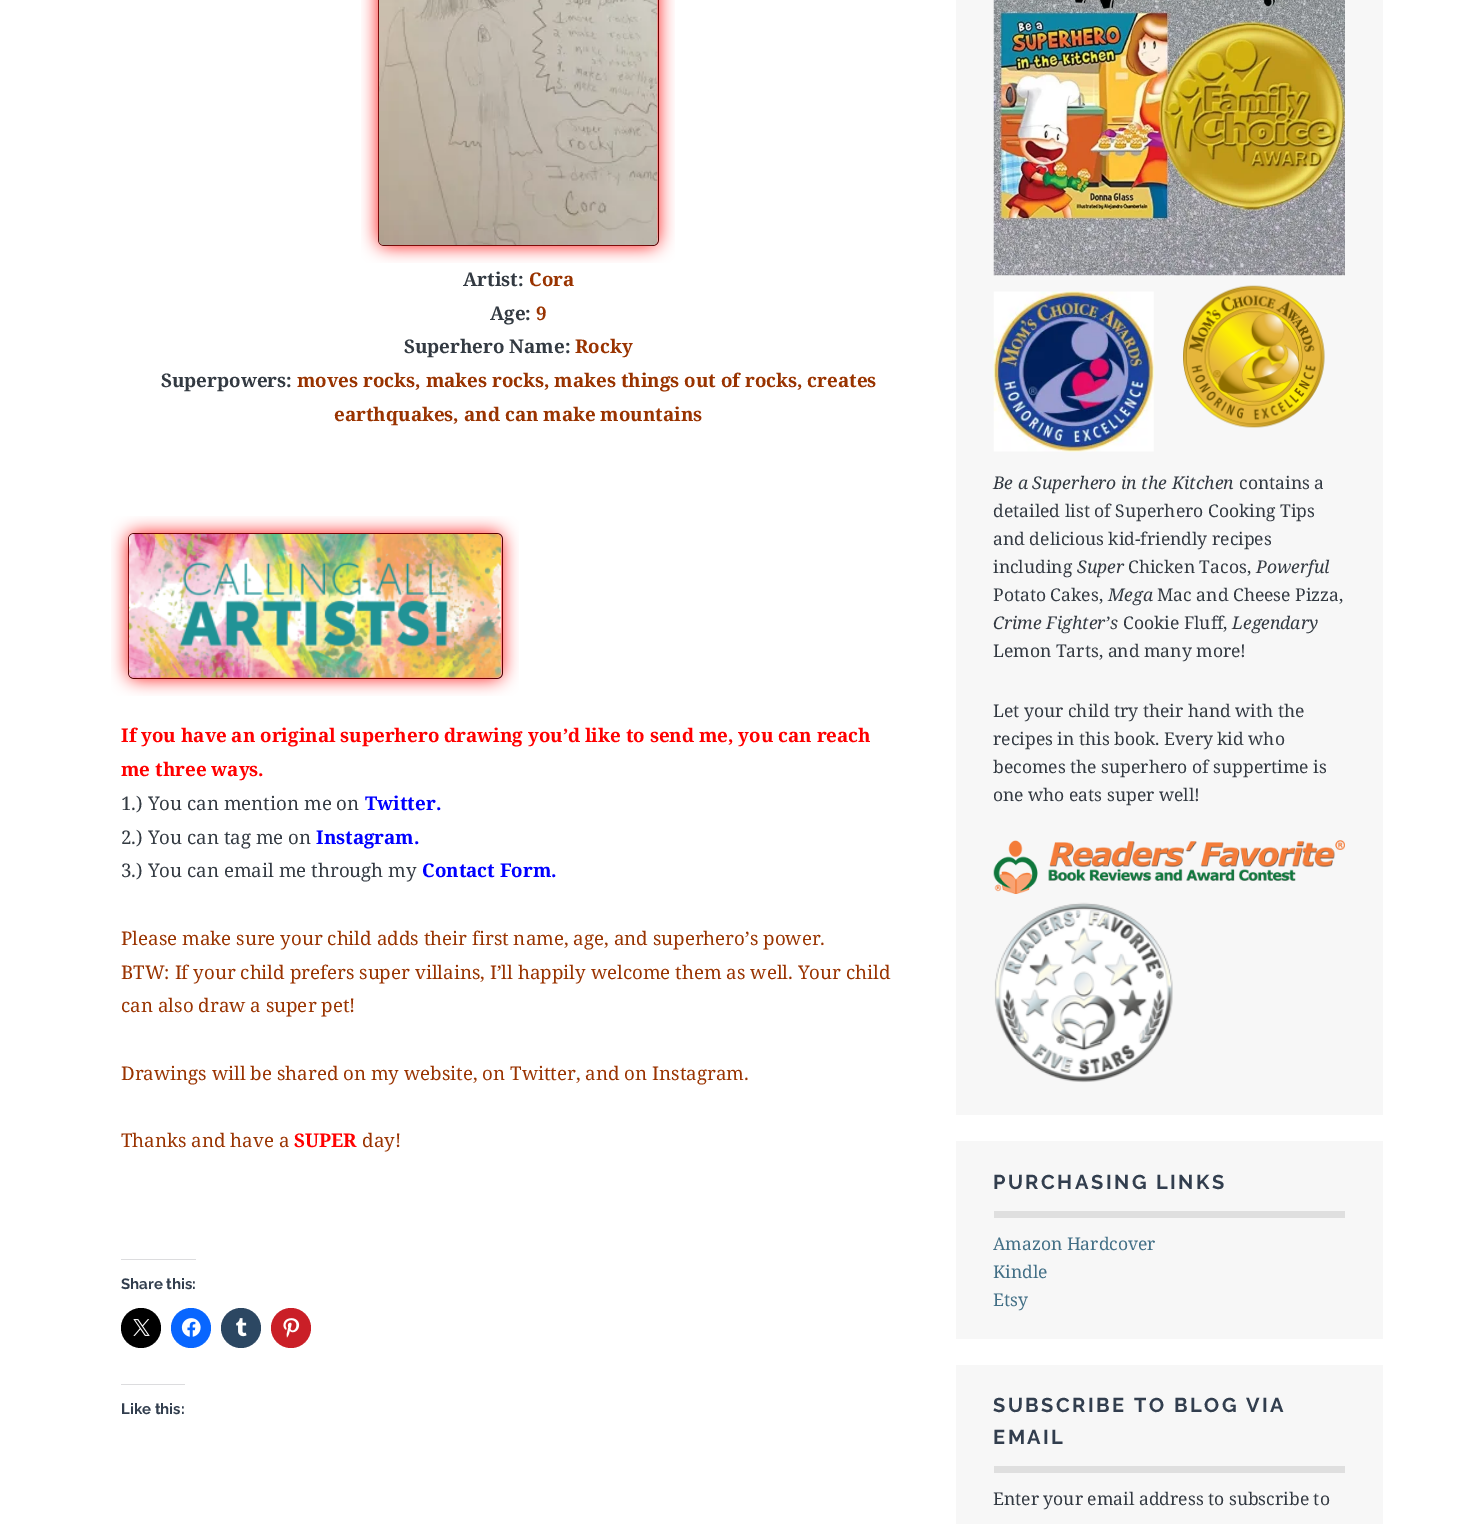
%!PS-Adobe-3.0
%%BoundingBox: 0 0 1484 1524
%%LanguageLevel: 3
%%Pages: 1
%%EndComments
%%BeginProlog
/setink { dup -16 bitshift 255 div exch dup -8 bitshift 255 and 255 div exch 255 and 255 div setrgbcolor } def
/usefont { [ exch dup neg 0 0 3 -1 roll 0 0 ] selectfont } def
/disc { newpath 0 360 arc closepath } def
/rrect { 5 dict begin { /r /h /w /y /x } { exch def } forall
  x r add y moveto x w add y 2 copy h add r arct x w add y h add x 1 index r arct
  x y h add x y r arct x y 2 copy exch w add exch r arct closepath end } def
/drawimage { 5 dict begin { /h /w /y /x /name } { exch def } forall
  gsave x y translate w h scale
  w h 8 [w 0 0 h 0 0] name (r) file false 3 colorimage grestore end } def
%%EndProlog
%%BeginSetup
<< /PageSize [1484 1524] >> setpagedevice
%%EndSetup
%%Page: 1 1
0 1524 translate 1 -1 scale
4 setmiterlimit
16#FFFFFF setink
0 0 1484 1524 rectfill
16#000000 setink
378.5 -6.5 280 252 5.5 rrect stroke
(img1.raw) 361 0 314 263 drawimage
/NotoSerif-Bold 18.75 usefont
16#333A42 setink
463 286 moveto (Artist:) show
16#993300 setink
529 286 moveto (Cora) show
16#333A42 setink
490 320 moveto (Age:) show
16#993300 setink
536 320 moveto (9) show
16#333A42 setink
404 353 moveto (Superhero Name:) show
16#993300 setink
575 353 moveto (Rocky) show
16#333A42 setink
161 387 moveto (Superpowers:) show
16#993300 setink
297 387 moveto (moves rocks, makes rocks, makes things out of rocks, creates) show
334 421 moveto (earthquakes, and can make mountains) show
16#000000 setink
128.5 533.5 374 145 5.5 rrect stroke
(img2.raw) 111 516 408 180 drawimage
16#FF0000 setink
121 742 moveto (If you have an original superhero drawing you’d like to send me, you can reach) show
121 776 moveto (me three ways.) show
/NotoSerif-Regular 18.75 usefont
16#333A42 setink
121 810 moveto (1.\) You can mention me on) show
/NotoSerif-Bold 18.75 usefont
16#0000FF setink
365 810 moveto (Twitter.) show
/NotoSerif-Regular 18.75 usefont
16#333A42 setink
121 844 moveto (2.\) You can tag me on) show
/NotoSerif-Bold 18.75 usefont
16#0000FF setink
316 844 moveto (Instagram.) show
/NotoSerif-Regular 18.75 usefont
16#333A42 setink
121 877 moveto (3.\) You can email me through my) show
/NotoSerif-Bold 18.75 usefont
16#0000FF setink
422 877 moveto (Contact Form.) show
/NotoSerif-Regular 18.75 usefont
16#993300 setink
[
    [(Please make sure your child adds their first name, age, and superhero’s power.) 121 945]
    [(BTW: If your child prefers super villains, I’ll happily welcome them as well. Your child) 121 979]
    [(can also draw a super pet!) 121 1012]
    [(Drawings will be shared on my website, on Twitter, and on Instagram.) 121 1080]
    [(Thanks and have a) 121 1147]
] { aload pop moveto show } forall
/NotoSerif-Bold 18.75 usefont
16#FF0000 setink
294 1147 moveto (SUPER) show
/NotoSerif-Regular 18.75 usefont
16#993300 setink
362 1147 moveto (day!) show
16#DCDCDE setink
121 1259 75 1 rectfill
/Raleway-Bold 15 usefont
16#323E4E setink
121 1289 moveto (Share this:) show
16#000000 setink
141 1328 20 disc fill
(img3.raw) 133 1319 17 17 drawimage
16#0866FF setink
191 1328 20 disc fill
(img4.raw) 181 1318 20 19 drawimage
16#2C4762 setink
241 1328 20 disc fill
(img5.raw) 236 1318 11 19 drawimage
16#CA1F27 setink
291 1328 20 disc fill
(img6.raw) 283 1318 17 20 drawimage
16#DCDCDE setink
121 1384 64 1 rectfill
16#323E4E setink
121 1414 moveto (Like this:) show
16#F7F7F7 setink
956 0 427 1115 rectfill
(img7.raw) 993 0 352 276 drawimage
(img8.raw) 993 291 161 161 drawimage
(img9.raw) 1183 285 142 143 drawimage
/NotoSerif-Italic 17.5 usefont
16#333A42 setink
993 489 moveto (Be a Superhero in the Kitchen) show
/NotoSerif-Regular 17.5 usefont
[
    [(contains a) 1239 489]
    [(detailed list of Superhero Cooking Tips) 993 517]
    [(and delicious kid-friendly recipes) 993 545]
    [(including) 993 573]
] { aload pop moveto show } forall
/NotoSerif-Italic 17.5 usefont
1077 573 moveto (Super) show
/NotoSerif-Regular 17.5 usefont
1128 573 moveto (Chicken Tacos,) show
/NotoSerif-Italic 17.5 usefont
1256 573 moveto (Powerful) show
/NotoSerif-Regular 17.5 usefont
993 601 moveto (Potato Cakes,) show
/NotoSerif-Italic 17.5 usefont
1108 601 moveto (Mega) show
/NotoSerif-Regular 17.5 usefont
1157 601 moveto (Mac and Cheese Pizza,) show
/NotoSerif-Italic 17.5 usefont
993 629 moveto (Crime Fighter’s) show
/NotoSerif-Regular 17.5 usefont
1123 629 moveto (Cookie Fluff,) show
/NotoSerif-Italic 17.5 usefont
1232 629 moveto (Legendary) show
/NotoSerif-Regular 17.5 usefont
[
    [(Lemon Tarts, and many more!) 993 657]
    [(Let your child try their hand with the) 993 717]
    [(recipes in this book. Every kid who) 993 745]
    [(becomes the superhero of suppertime is) 993 773]
    [(one who eats super well!) 993 801]
] { aload pop moveto show } forall
(img10.raw) 993 840 352 54 drawimage
(img11.raw) 994 902 179 181 drawimage
16#F7F7F7 setink
956 1141 427 198 rectfill
16#DFDFDF setink
994 1211 351 7 rectfill
/Raleway-Bold 20 usefont
16#323E4E setink
993 1189 moveto 2.5 0 (PURCHASING LINKS) ashow
/NotoSerif-Regular 17.5 usefont
16#426F86 setink
[
    [(Amazon Hardcover) 993 1250]
    [(Kindle) 993 1278]
    [(Etsy) 993 1306]
] { aload pop moveto show } forall
16#F7F7F7 setink
956 1365 427 159 rectfill
16#DFDFDF setink
994 1466 351 7 rectfill
/Raleway-Bold 20 usefont
16#323E4E setink
993 1412 moveto 2.5 0 (SUBSCRIBE TO BLOG VIA) ashow
993 1444 moveto 2.5 0 (EMAIL) ashow
/NotoSerif-Regular 17.5 usefont
16#333A42 setink
993 1505 moveto (Enter your email address to subscribe to) show
showpage
%%EOF
